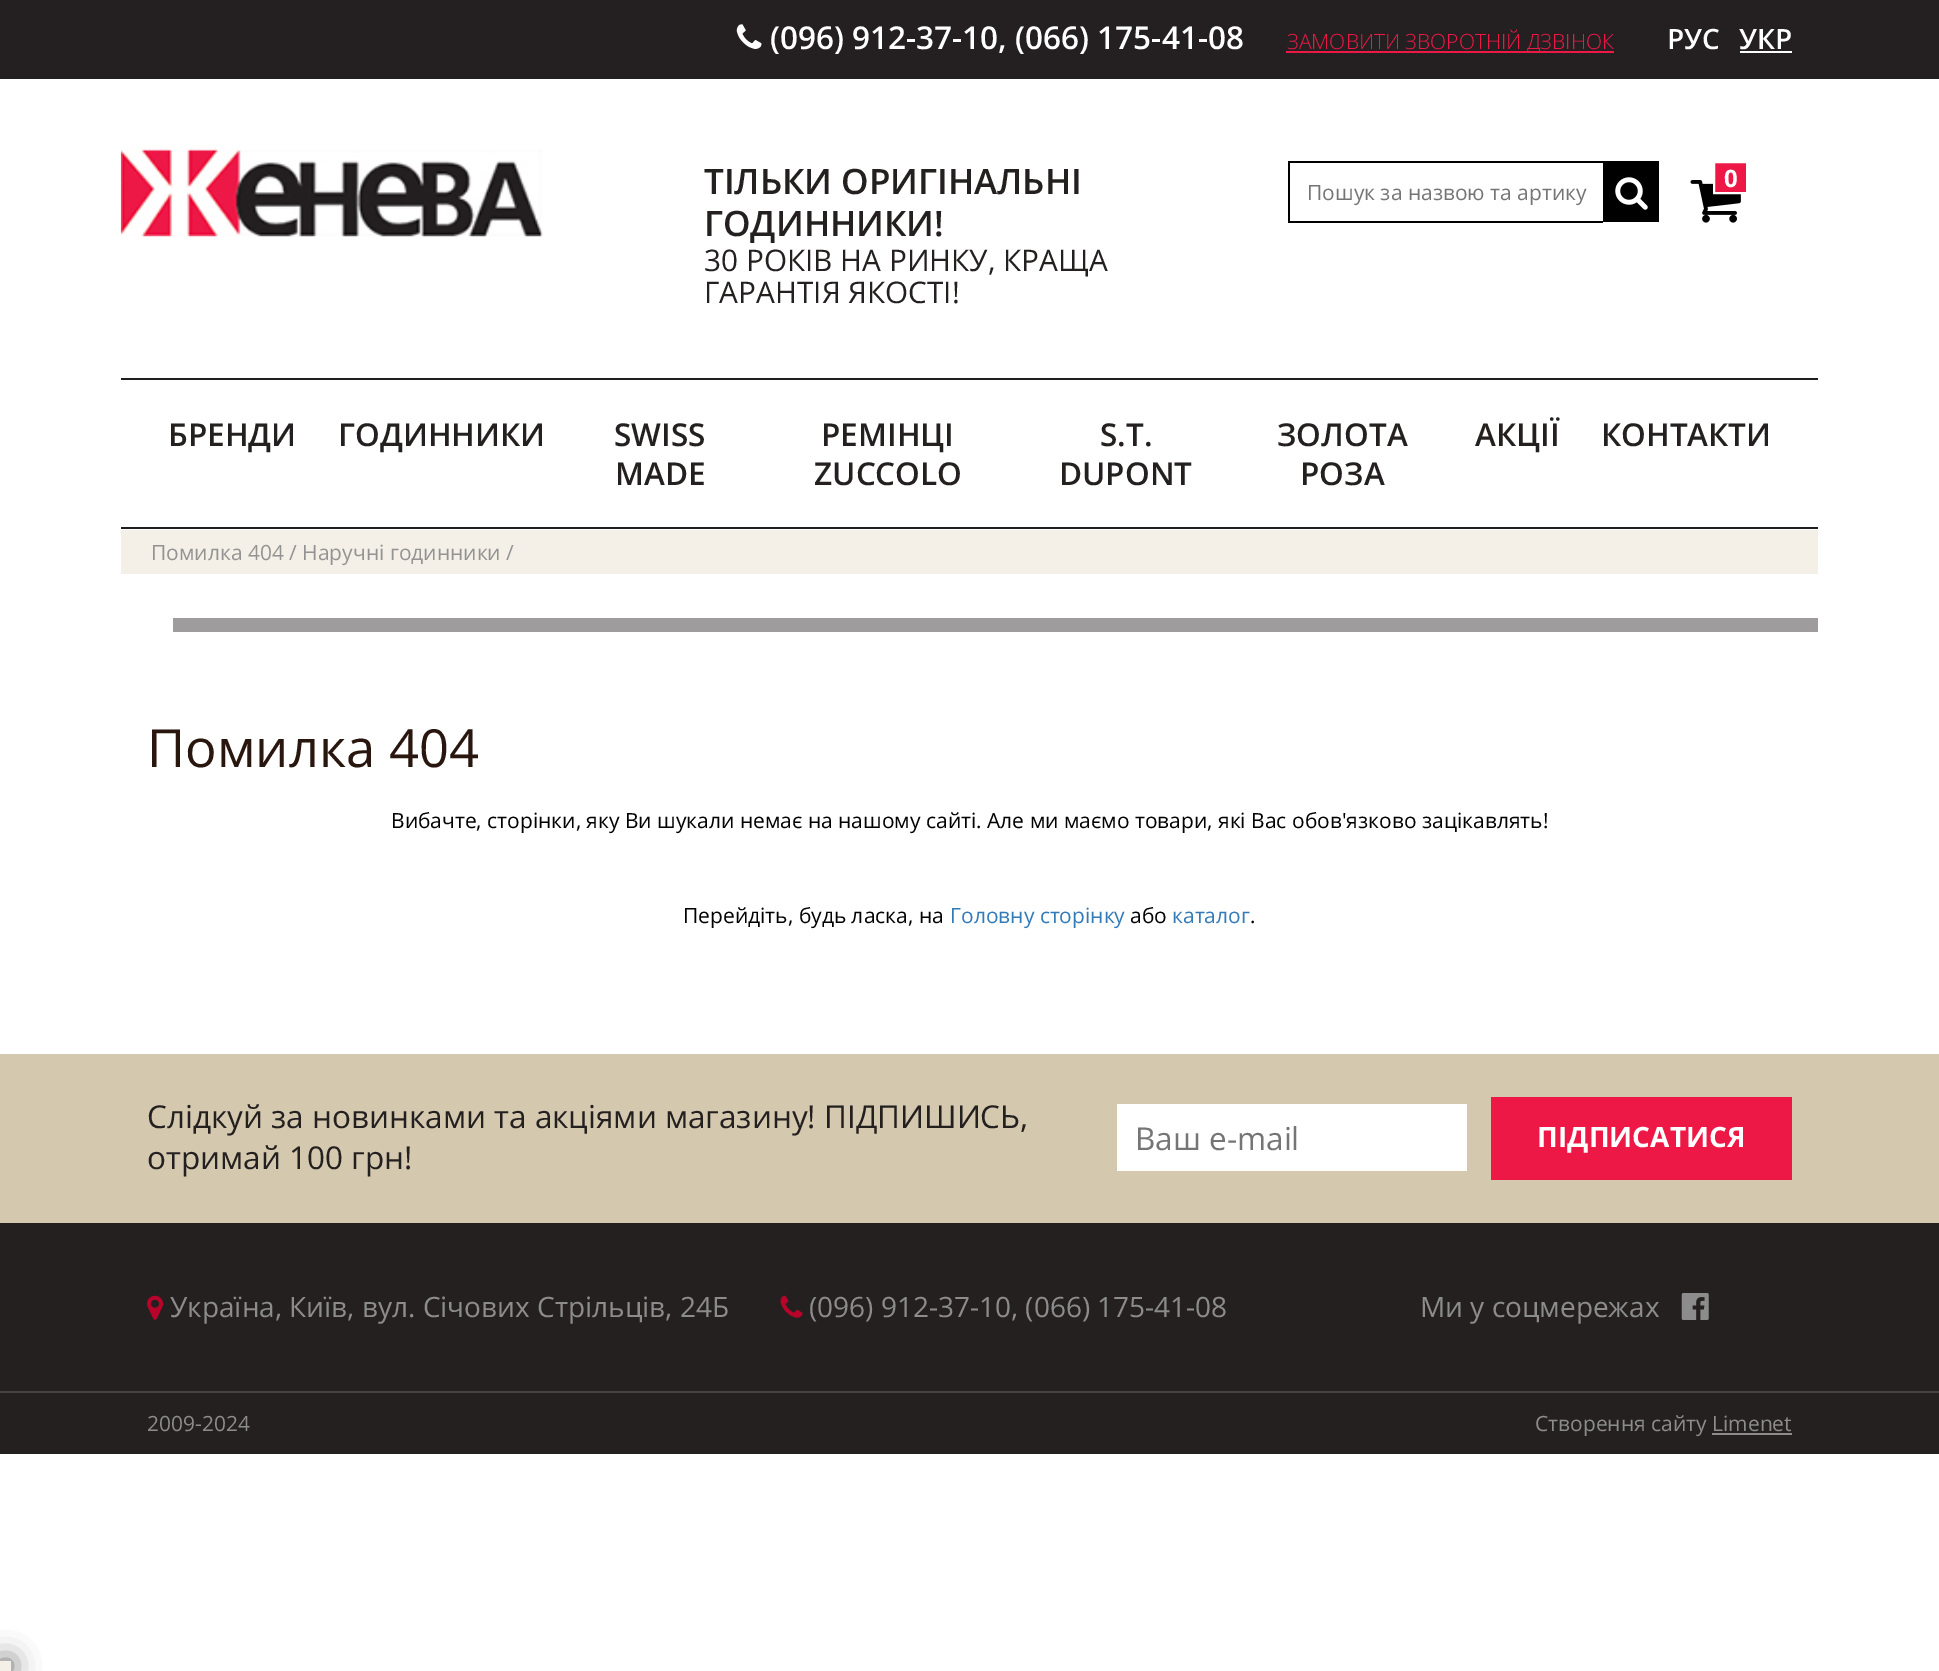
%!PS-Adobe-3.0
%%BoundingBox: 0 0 1939 1671
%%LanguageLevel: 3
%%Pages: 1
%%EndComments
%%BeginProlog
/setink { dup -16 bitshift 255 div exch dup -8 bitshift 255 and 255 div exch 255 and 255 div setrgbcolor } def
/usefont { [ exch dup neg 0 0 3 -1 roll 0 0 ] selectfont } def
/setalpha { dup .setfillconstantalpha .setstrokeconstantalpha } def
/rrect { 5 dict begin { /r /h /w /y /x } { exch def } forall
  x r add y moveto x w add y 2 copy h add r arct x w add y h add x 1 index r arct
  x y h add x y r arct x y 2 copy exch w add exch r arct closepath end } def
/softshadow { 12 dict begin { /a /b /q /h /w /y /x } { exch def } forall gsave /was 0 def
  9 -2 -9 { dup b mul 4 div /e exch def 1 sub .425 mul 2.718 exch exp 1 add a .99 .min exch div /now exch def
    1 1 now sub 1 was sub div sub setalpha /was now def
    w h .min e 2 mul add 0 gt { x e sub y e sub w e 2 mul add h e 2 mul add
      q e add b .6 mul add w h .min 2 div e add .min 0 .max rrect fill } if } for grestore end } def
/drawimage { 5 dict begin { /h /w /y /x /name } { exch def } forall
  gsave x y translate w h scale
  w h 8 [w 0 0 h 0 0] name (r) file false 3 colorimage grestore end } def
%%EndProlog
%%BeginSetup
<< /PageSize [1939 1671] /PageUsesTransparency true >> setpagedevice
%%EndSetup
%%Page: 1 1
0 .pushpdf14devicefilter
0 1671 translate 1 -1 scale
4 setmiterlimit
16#FFFFFF setink
0 0 1939 1671 rectfill
16#242021 setink
0 0 1939 79 rectfill
(img1.raw) 736 24 26 25 drawimage
/OpenSans-SemiBold 31.5 usefont
16#FFFFFF setink
770 49 moveto (\(096\) 912-37-10, \(066\) 175-41-08) show
16#ED1846 setink
1286 51 328 2 rectfill
/OpenSans-Light 21 usefont
1287 49 moveto (ЗАМОВИТИ ЗВОРОТНІЙ ДЗВІНОК) show
/OpenSans-SemiBold 28 usefont
16#FFFFFF setink
1667 49 moveto (РУС) show
1739 49 moveto (УКР) show
1740 51 52 2 rectfill
(img2.raw) 120 148 423 89 drawimage
/OpenSans-SemiBold 35 usefont
16#242020 setink
704 194 moveto (ТІЛЬКИ ОРИГІНАЛЬНІ) show
704 236 moveto (ГОДИННИКИ!) show
/OpenSans-Regular 29.75 usefont
704 271 moveto (30 РОКІВ НА РИНКУ, КРАЩА) show
704 303 moveto (ГАРАНТІЯ ЯКОСТІ!) show
(img3.raw) 1690 180 51 43 drawimage
16#ED1846 setink
1714 162 moveto 1747 162 lineto 1747 193 lineto 1714 193 lineto closepath gsave fill grestore
16#FFFFFF setink
2 setlinewidth
stroke
/OpenSans-Bold 24 usefont
1724 187 moveto (0) show
[
    [1288 161 315 2 16#000000]
    [1288 221 315 2 16#000000]
    [1288 161 2 61 16#000000]
] { aload pop setink rectfill } forall
/OpenSans-Regular 21 usefont
16#757575 setink
1307 200 moveto (Пошук за назвою та артику) show
16#000000 setink
1603 161 56 61 rectfill
(img4.raw) 1615 177 33 33 drawimage
16#211E1F setink
121 378 1697 2 rectfill
121 527 1697 2 rectfill
/OpenSans-SemiBold 31.5 usefont
16#242020 setink
[
    [(БРЕНДИ) 168 446]
    [(ГОДИННИКИ) 338 446]
    [(SWISS) 614 446]
    [(MADE) 615 485]
    [(РЕМІНЦІ) 821 446]
    [(ZUCCOLO) 814 485]
    [(S.T.) 1100 446]
    [(DUPONT) 1059 485]
    [(ЗОЛОТА) 1277 446]
    [(РОЗА) 1300 485]
    [(АКЦІЇ) 1475 446]
    [(КОНТАКТИ) 1601 446]
] { aload pop moveto show } forall
16#F4F0E7 setink
121 530 1697 44 rectfill
/OpenSans-Regular 21 usefont
16#949393 setink
151 560 moveto (Помилка 404 / Наручні годинники /) show
16#9F9C9D setink
173 618 1645 14 rectfill
/OpenSans-Regular 52.5 usefont
16#29160E setink
147 767 moveto (Помилка 404) show
/OpenSans-Regular 21 usefont
16#000000 setink
391 828 moveto (Вибачте, сторінки, яку Ви шукали немає на нашому сайті. Але ми маємо товари, які Вас обов'язково зацікавлять!) show
683 923 moveto (Перейдіть, будь ласка, на) show
16#337AB7 setink
950 923 moveto (Головну сторінку) show
16#000000 setink
1130 923 moveto (або) show
16#337AB7 setink
1172 923 moveto (каталог) show
16#000000 setink
1250 923 moveto (.) show
16#D4C8AF setink
0 1054 1939 169 rectfill
/OpenSans-Regular 31.5 usefont
16#242020 setink
147 1128 moveto (Слідкуй за новинками та акціями магазину! ПІДПИШИСЬ,) show
147 1169 moveto (отримай 100 грн!) show
16#FFFFFF setink
1117 1104 350 67 rectfill
16#757575 setink
1135 1150 moveto (Ваш e-mail) show
16#ED1846 setink
1491 1097 301 83 rectfill
/OpenSans-Bold 28 usefont
16#FFFFFF setink
1537 1147 moveto (ПІДПИСАТИСЯ) show
16#242020 setink
0 1223 1939 168 rectfill
16#444343 setink
0 1391 1939 2 rectfill
(img5.raw) 147 1295 16 25 drawimage
/OpenSans-Regular 28 usefont
16#8C8C8C setink
170 1317 moveto (Україна, Київ, вул. Січових Стрільців, 24Б) show
(img6.raw) 780 1295 23 23 drawimage
809 1317 moveto (\(096\) 912-37-10, \(066\) 175-41-08) show
1420 1317 moveto (Ми у соцмережах) show
(img7.raw) 1681 1293 28 27 drawimage
16#242020 setink
0 1393 1939 61 rectfill
/OpenSans-Regular 21 usefont
16#8C8C8C setink
147 1431 moveto (2009-2024) show
1535 1431 moveto (Створення сайту Limenet) show
1712 1433 80 2 rectfill
16#323232 setink
0 1661 11 10 0 14 0.75 softshadow
16#F4F0E7 setink
0 1661 11 10 rectfill
.poppdf14devicefilter showpage
%%EOF
